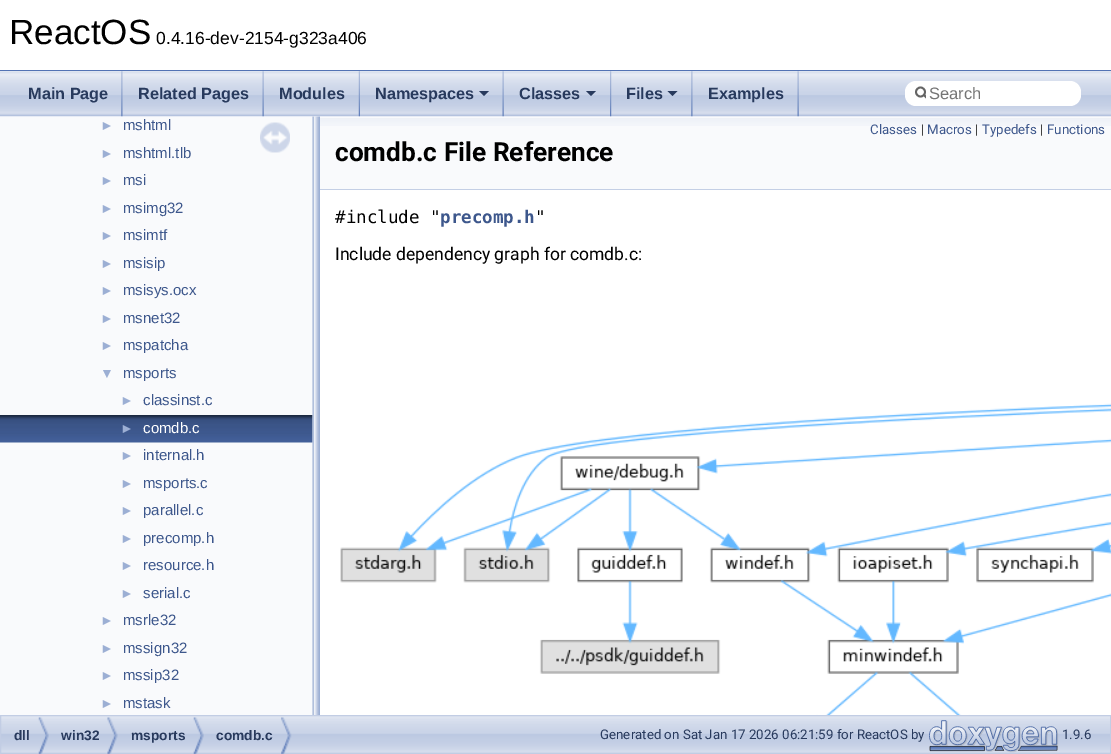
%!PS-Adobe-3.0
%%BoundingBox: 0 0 1111 754
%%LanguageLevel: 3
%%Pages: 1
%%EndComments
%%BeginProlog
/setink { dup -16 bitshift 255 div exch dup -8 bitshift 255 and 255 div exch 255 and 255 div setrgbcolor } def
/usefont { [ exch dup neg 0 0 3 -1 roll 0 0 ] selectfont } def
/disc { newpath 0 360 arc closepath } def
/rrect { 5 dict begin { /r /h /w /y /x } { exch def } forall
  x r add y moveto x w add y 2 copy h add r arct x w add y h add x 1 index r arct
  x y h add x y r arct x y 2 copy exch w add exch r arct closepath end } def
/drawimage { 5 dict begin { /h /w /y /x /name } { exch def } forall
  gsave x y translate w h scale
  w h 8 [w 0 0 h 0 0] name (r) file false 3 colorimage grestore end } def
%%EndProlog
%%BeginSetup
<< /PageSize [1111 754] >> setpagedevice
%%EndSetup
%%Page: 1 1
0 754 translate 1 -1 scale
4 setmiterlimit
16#FFFFFF setink
0 0 1111 754 rectfill
16#5373B4 setink
0 70 1111 1 rectfill
/LiberationSans-Regular 35 usefont
16#000000 setink
9 44 moveto (ReactOS) show
/LiberationSans-Regular 17.5 usefont
156 44 moveto (0.4.16-dev-2154-g323a406) show
16#F9FAFC setink
0 116 313 599 rectfill
(img6.raw) 0 415 313 28 drawimage
(img8.raw) 312 116 8 599 drawimage
320 116 791 73 rectfill
(img1.raw) 0 71 1111 46 drawimage
(img2.raw) 121 71 2 46 drawimage
/LiberationSans-Bold 16.25 usefont
16#283A5D setink
28 99 moveto (Main Page) show
(img3.raw) 262 71 2 46 drawimage
138 99 moveto (Related Pages) show
(img4.raw) 358 71 2 46 drawimage
279 99 moveto (Modules) show
(img3.raw) 502 71 2 46 drawimage
375 99 moveto (Namespaces) show
479 91 moveto 489 91 lineto 484 96 lineto closepath fill
(img5.raw) 610 71 2 46 drawimage
519 99 moveto (Classes) show
586 91 moveto 596 91 lineto 591 96 lineto closepath fill
(img2.raw) 691 71 2 46 drawimage
626 99 moveto (Files) show
667.5 91 moveto 677.5 91 lineto 672.5 96 lineto closepath fill
(img3.raw) 797 71 2 46 drawimage
708 99 moveto (Examples) show
16#FFFFFF setink
905 81 176 25 11 rrect fill
16#656565 setink
1.8 setlinewidth
920.5 92 4.5 disc stroke
gsave
914 81 12 24 rectclip
1 setlinecap
924 95 moveto 927.5 98.5 lineto stroke
grestore
/LiberationSans-Regular 16.5 usefont
16#757575 setink
929 99 moveto (Search) show
/LiberationSans-Regular 14 usefont
16#9CAFD4 setink
100 130 moveto (►) show
/LiberationSans-Regular 15 usefont
16#3D578C setink
123 130 moveto (mshtml) show
/LiberationSans-Regular 14 usefont
16#9CAFD4 setink
100 158 moveto (►) show
/LiberationSans-Regular 15 usefont
16#3D578C setink
123 158 moveto (mshtml.tlb) show
/LiberationSans-Regular 14 usefont
16#9CAFD4 setink
100 185 moveto (►) show
/LiberationSans-Regular 15 usefont
16#3D578C setink
123 185 moveto (msi) show
/LiberationSans-Regular 14 usefont
16#9CAFD4 setink
100 213 moveto (►) show
/LiberationSans-Regular 15 usefont
16#3D578C setink
123 213 moveto (msimg32) show
/LiberationSans-Regular 14 usefont
16#9CAFD4 setink
100 240 moveto (►) show
/LiberationSans-Regular 15 usefont
16#3D578C setink
123 240 moveto (msimtf) show
/LiberationSans-Regular 14 usefont
16#9CAFD4 setink
100 268 moveto (►) show
/LiberationSans-Regular 15 usefont
16#3D578C setink
123 268 moveto (msisip) show
/LiberationSans-Regular 14 usefont
16#9CAFD4 setink
100 295 moveto (►) show
/LiberationSans-Regular 15 usefont
16#3D578C setink
123 295 moveto (msisys.ocx) show
/LiberationSans-Regular 14 usefont
16#9CAFD4 setink
100 323 moveto (►) show
/LiberationSans-Regular 15 usefont
16#3D578C setink
123 323 moveto (msnet32) show
/LiberationSans-Regular 14 usefont
16#9CAFD4 setink
100 350 moveto (►) show
/LiberationSans-Regular 15 usefont
16#3D578C setink
123 350 moveto (mspatcha) show
/LiberationSans-Regular 14 usefont
16#9CAFD4 setink
100 378 moveto (▼) show
/LiberationSans-Regular 15 usefont
16#3D578C setink
123 378 moveto (msports) show
/LiberationSans-Regular 14 usefont
16#9CAFD4 setink
120 405 moveto (►) show
/LiberationSans-Regular 15 usefont
16#3D578C setink
143 405 moveto (classinst.c) show
/LiberationSans-Regular 14 usefont
16#9CAFD4 setink
120 433 moveto (►) show
/LiberationSans-Regular 15 usefont
16#FFFFFF setink
143 433 moveto (comdb.c) show
/LiberationSans-Regular 14 usefont
16#9CAFD4 setink
120 460 moveto (►) show
/LiberationSans-Regular 15 usefont
16#3D578C setink
143 460 moveto (internal.h) show
/LiberationSans-Regular 14 usefont
16#9CAFD4 setink
120 488 moveto (►) show
/LiberationSans-Regular 15 usefont
16#3D578C setink
143 488 moveto (msports.c) show
/LiberationSans-Regular 14 usefont
16#9CAFD4 setink
120 515 moveto (►) show
/LiberationSans-Regular 15 usefont
16#3D578C setink
143 515 moveto (parallel.c) show
/LiberationSans-Regular 14 usefont
16#9CAFD4 setink
120 543 moveto (►) show
/LiberationSans-Regular 15 usefont
16#3D578C setink
143 543 moveto (precomp.h) show
/LiberationSans-Regular 14 usefont
16#9CAFD4 setink
120 570 moveto (►) show
/LiberationSans-Regular 15 usefont
16#3D578C setink
143 570 moveto (resource.h) show
/LiberationSans-Regular 14 usefont
16#9CAFD4 setink
120 598 moveto (►) show
/LiberationSans-Regular 15 usefont
16#3D578C setink
143 598 moveto (serial.c) show
/LiberationSans-Regular 14 usefont
16#9CAFD4 setink
100 625 moveto (►) show
/LiberationSans-Regular 15 usefont
16#3D578C setink
123 625 moveto (msrle32) show
/LiberationSans-Regular 14 usefont
16#9CAFD4 setink
100 653 moveto (►) show
/LiberationSans-Regular 15 usefont
16#3D578C setink
123 653 moveto (mssign32) show
/LiberationSans-Regular 14 usefont
16#9CAFD4 setink
100 680 moveto (►) show
/LiberationSans-Regular 15 usefont
16#3D578C setink
123 680 moveto (mssip32) show
/LiberationSans-Regular 14 usefont
16#9CAFD4 setink
100 708 moveto (►) show
/LiberationSans-Regular 15 usefont
16#3D578C setink
123 708 moveto (mstask) show
(img7.raw) 260 122 30 31 drawimage
(img9.raw) 320 118 791 8 drawimage
16#C4CFE5 setink
320 189 791 1 rectfill
/Roboto-Regular 13.3 usefont
16#3D578C setink
870 134 moveto (Classes) show
16#000000 setink
921 134 moveto (|) show
16#3D578C setink
927 134 moveto (Macros) show
16#000000 setink
975 134 moveto (|) show
16#3D578C setink
982 134 moveto (Typedefs) show
16#000000 setink
1040 134 moveto (|) show
16#3D578C setink
1047 134 moveto (Functions) show
/Roboto-Bold 26.25 usefont
16#000000 setink
335 161 moveto (comdb.c File Reference) show
/DejaVuSansMono-Regular 17.5 usefont
335 223 moveto (#include ") show
/DejaVuSansMono-Bold 17.5 usefont
16#3D578C setink
440 223 moveto (precomp.h) show
/DejaVuSansMono-Regular 17.5 usefont
16#000000 setink
535 223 moveto (") show
/Roboto-Regular 17.5 usefont
335 260 moveto (Include dependency graph for comdb.c:) show
(img10.raw) 340 403 771 312 drawimage
(img11.raw) 1 716 1109 38 drawimage
16#C2CDE4 setink
1 setlinewidth
0.5 715.5 1110 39 rectstroke
(img12.raw) 38 717 11 37 drawimage
/LiberationSans-Bold 13.75 usefont
16#283A5D setink
14 740 moveto (dll) show
(img13.raw) 107 717 11 37 drawimage
61 740 moveto (win32) show
(img12.raw) 193 717 11 37 drawimage
131 740 moveto (msports) show
(img14.raw) 281 717 11 37 drawimage
216 740 moveto (comdb.c) show
/Roboto-Regular 13.3 usefont
600 739 moveto (Generated on Sat Jan 17 2026 06:21:59 for ReactOS by) show
(img15.raw) 929 720 130 33 drawimage
1062 739 moveto (1.9.6) show
showpage
%%EOF
